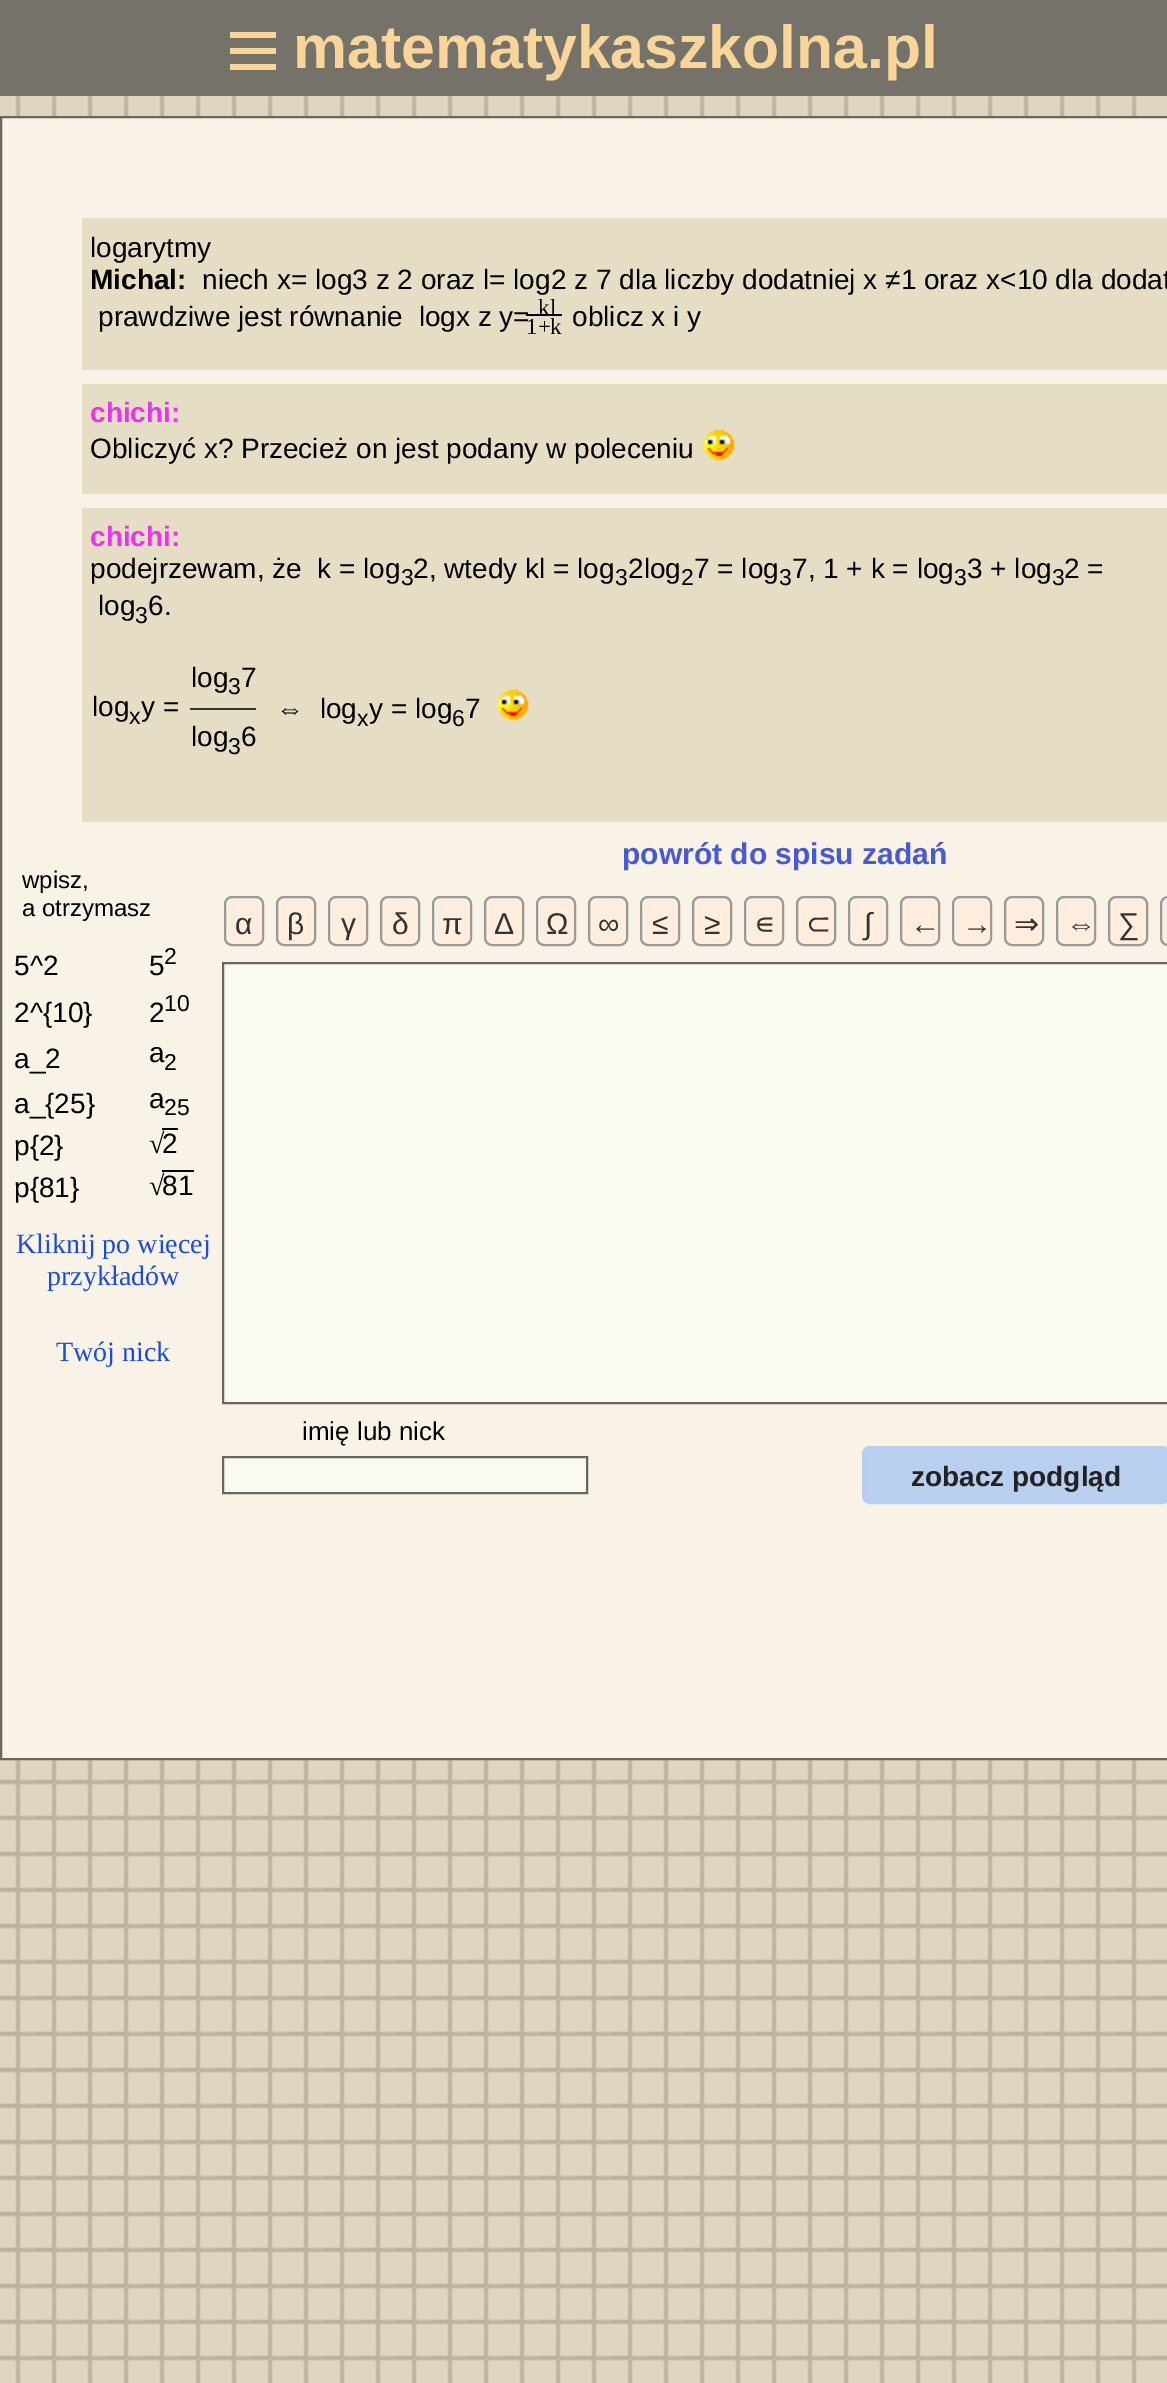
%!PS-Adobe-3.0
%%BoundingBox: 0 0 1167 2383
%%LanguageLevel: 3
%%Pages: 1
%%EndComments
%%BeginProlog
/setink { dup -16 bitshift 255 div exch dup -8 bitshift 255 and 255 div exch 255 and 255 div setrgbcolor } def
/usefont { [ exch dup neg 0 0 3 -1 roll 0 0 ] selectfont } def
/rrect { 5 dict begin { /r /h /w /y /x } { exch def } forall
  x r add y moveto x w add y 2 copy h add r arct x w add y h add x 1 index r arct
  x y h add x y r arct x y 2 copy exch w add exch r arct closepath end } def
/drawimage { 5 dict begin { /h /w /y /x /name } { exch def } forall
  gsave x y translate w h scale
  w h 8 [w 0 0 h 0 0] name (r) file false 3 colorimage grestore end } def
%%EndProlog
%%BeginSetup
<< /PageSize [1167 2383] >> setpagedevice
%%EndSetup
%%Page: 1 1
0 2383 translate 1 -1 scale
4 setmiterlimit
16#FFFFFF setink
0 0 1167 2383 rectfill
(img1.raw) 0 96 1167 2287 drawimage
16#75726A setink
0 0 1167 96 rectfill
(img2.raw) 230 32 46 38 drawimage
/LiberationSans-Bold 60.75 usefont
16#F8D599 setink
293 68 moveto (matematykaszkolna.pl) show
16#F8F3E6 setink
1 117 moveto 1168 117 lineto 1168 1759 lineto 1 1759 lineto closepath gsave fill grestore
16#6B675B setink
2 setlinewidth
stroke
16#E6DDC5 setink
82 218 1085 152 rectfill
/LiberationSans-Regular 28 usefont
16#000000 setink
90 257 moveto (logarytmy) show
/LiberationSans-Bold 28 usefont
90 289 moveto (Michal:) show
/LiberationSans-Regular 28 usefont
202 289 moveto (niech x= log3 z 2 oraz l= log2 z 7 dla liczby dodatniej x ≠1 oraz x<10 dla dodat) show
98 326 moveto (prawdziwe jest równanie  logx z y=) show
/LiberationSerif-Regular 23 usefont
538 315 moveto (kl) show
526 314 36 2 rectfill
/LiberationSans-Regular 28 usefont
572 326 moveto (oblicz x i y) show
/LiberationSerif-Regular 23 usefont
526 334 moveto (1+k) show
16#E6DDC5 setink
82 384 1085 110 rectfill
/LiberationSans-Bold 28 usefont
16#F030F0 setink
90 422 moveto (chichi:) show
/LiberationSans-Regular 28 usefont
16#000000 setink
90 458 moveto (Obliczyć x? Przecież on jest podany w poleceniu) show
(img3.raw) 703 429 32 32 drawimage
16#E6DDC5 setink
82 508 1085 314 rectfill
/LiberationSans-Bold 28 usefont
16#F030F0 setink
90 546 moveto (chichi:) show
/LiberationSans-Regular 28 usefont
16#000000 setink
90 578 moveto (podejrzewam, że  k = log) show
/LiberationSans-Regular 23 usefont
401 585 moveto (3) show
/LiberationSans-Regular 28 usefont
413 578 moveto (2, wtedy kl = log) show
/LiberationSans-Regular 23 usefont
615 585 moveto (3) show
/LiberationSans-Regular 28 usefont
628 578 moveto (2log) show
/LiberationSans-Regular 23 usefont
681 585 moveto (2) show
/LiberationSans-Regular 28 usefont
694 578 moveto (7 = log) show
/LiberationSans-Regular 23 usefont
779 585 moveto (3) show
/LiberationSans-Regular 28 usefont
792 578 moveto (7, 1 + k = log) show
/LiberationSans-Regular 23 usefont
954 585 moveto (3) show
/LiberationSans-Regular 28 usefont
967 578 moveto (3 + log) show
/LiberationSans-Regular 23 usefont
1052 585 moveto (3) show
/LiberationSans-Regular 28 usefont
1064 578 moveto (2 =) show
98 615 moveto (log) show
/LiberationSans-Regular 23 usefont
135 623 moveto (3) show
/LiberationSans-Regular 28 usefont
148 615 moveto (6.) show
191 687 moveto (log) show
/LiberationSans-Regular 23 usefont
228 694 moveto (3) show
/LiberationSans-Regular 28 usefont
241 687 moveto (7) show
92 716 moveto (log) show
/LiberationSans-Regular 23 usefont
129 724 moveto (x) show
/LiberationSans-Regular 28 usefont
141 716 moveto (y =) show
16#333333 setink
190 708 66 2 rectfill
16#000000 setink
276 718 moveto (⇔  log) show
/LiberationSans-Regular 23 usefont
357 726 moveto (x) show
/LiberationSans-Regular 28 usefont
369 718 moveto (y = log) show
/LiberationSans-Regular 23 usefont
452 726 moveto (6) show
/LiberationSans-Regular 28 usefont
465 718 moveto (7) show
(img3.raw) 497 689 32 32 drawimage
191 746 moveto (log) show
/LiberationSans-Regular 23 usefont
228 754 moveto (3) show
/LiberationSans-Regular 28 usefont
241 746 moveto (6) show
/LiberationSans-Bold 30 usefont
16#495AD1 setink
622 864 moveto (powrót do spisu zadań) show
/LiberationSans-Regular 24 usefont
16#000000 setink
22 888 moveto (wpisz,) show
22 916 moveto (a otrzymasz) show
16#FFEEDD setink
225 897 38 48 7 rrect gsave fill grestore
16#999999 setink
stroke
/LiberationSans-Regular 30 usefont
16#333333 setink
235 934 moveto (α) show
16#FFEEDD setink
277 897 38 48 7 rrect gsave fill grestore
16#999999 setink
stroke
16#333333 setink
287 934 moveto (β) show
16#FFEEDD setink
329 897 38 48 7 rrect gsave fill grestore
16#999999 setink
stroke
16#333333 setink
341 934 moveto (γ) show
16#FFEEDD setink
381 897 38 48 7 rrect gsave fill grestore
16#999999 setink
stroke
16#333333 setink
392 934 moveto (δ) show
16#FFEEDD setink
433 897 38 48 7 rrect gsave fill grestore
16#999999 setink
stroke
16#333333 setink
442 934 moveto (π) show
16#FFEEDD setink
485 897 38 48 7 rrect gsave fill grestore
16#999999 setink
stroke
16#333333 setink
494 934 moveto (Δ) show
16#FFEEDD setink
537 897 38 48 7 rrect gsave fill grestore
16#999999 setink
stroke
16#333333 setink
546 934 moveto (Ω) show
16#FFEEDD setink
589 897 38 48 7 rrect gsave fill grestore
16#999999 setink
stroke
16#333333 setink
598 934 moveto (∞) show
16#FFEEDD setink
641 897 38 48 7 rrect gsave fill grestore
16#999999 setink
stroke
16#333333 setink
652 934 moveto (≤) show
16#FFEEDD setink
693 897 38 48 7 rrect gsave fill grestore
16#999999 setink
stroke
16#333333 setink
704 934 moveto (≥) show
16#FFEEDD setink
745 897 38 48 7 rrect gsave fill grestore
16#999999 setink
stroke
/DejaVuSans-Regular 30 usefont
16#333333 setink
754 934 moveto (∊) show
16#FFEEDD setink
797 897 38 48 7 rrect gsave fill grestore
16#999999 setink
stroke
16#333333 setink
806 934 moveto (⊂) show
16#FFEEDD setink
849 897 38 48 7 rrect gsave fill grestore
16#999999 setink
stroke
/LiberationSans-Regular 30 usefont
16#333333 setink
864 934 moveto (∫) show
16#FFEEDD setink
901 897 38 48 7 rrect gsave fill grestore
16#999999 setink
stroke
16#333333 setink
910 934 moveto (←) show
16#FFEEDD setink
953 897 38 48 7 rrect gsave fill grestore
16#999999 setink
stroke
16#333333 setink
962 934 moveto (→) show
16#FFEEDD setink
1005 897 38 48 7 rrect gsave fill grestore
16#999999 setink
stroke
/DejaVuSans-Regular 30 usefont
16#333333 setink
1014 934 moveto (⇒) show
16#FFEEDD setink
1057 897 38 48 7 rrect gsave fill grestore
16#999999 setink
stroke
/LiberationSans-Regular 30 usefont
16#333333 setink
1066 934 moveto (⇔) show
16#FFEEDD setink
1109 897 38 48 7 rrect gsave fill grestore
16#999999 setink
stroke
16#333333 setink
1118 934 moveto (∑) show
16#FFEEDD setink
1161 897 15 48 7 rrect gsave fill grestore
16#999999 setink
stroke
/LiberationSans-Regular 28 usefont
16#000000 setink
14 975 moveto (5^2) show
149 975 moveto (5) show
/LiberationSans-Regular 23 usefont
164 964 moveto (2) show
/LiberationSans-Regular 28 usefont
14 1022 moveto (2^{10}) show
149 1022 moveto (2) show
/LiberationSans-Regular 23 usefont
164 1011 moveto (10) show
/LiberationSans-Regular 28 usefont
14 1068 moveto (a_2) show
149 1062 moveto (a) show
/LiberationSans-Regular 23 usefont
164 1070 moveto (2) show
/LiberationSans-Regular 28 usefont
14 1113 moveto (a_{25}) show
149 1108 moveto (a) show
/LiberationSans-Regular 23 usefont
164 1115 moveto (25) show
/LiberationSans-Regular 28 usefont
14 1155 moveto (p{2}) show
/LiberationSerif-Regular 28 usefont
149 1153 moveto (√) show
/LiberationSans-Regular 28 usefont
162 1153 moveto (2) show
162 1128 16 2 rectfill
14 1197 moveto (p{81}) show
/LiberationSerif-Regular 28 usefont
149 1195 moveto (√) show
/LiberationSans-Regular 28 usefont
162 1195 moveto (81) show
162 1170 32 2 rectfill
/LiberationSerif-Regular 28 usefont
16#184BDE setink
[
    [(Kliknij po więcej) 16 1253]
    [(przykładów) 47 1285]
    [(Twój nick) 56 1361]
] { aload pop moveto show } forall
16#FAFAF2 setink
223 963 moveto 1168 963 lineto 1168 1403 lineto 223 1403 lineto closepath gsave fill grestore
16#6B675B setink
stroke
/LiberationSans-Regular 26 usefont
16#000000 setink
302 1440 moveto (imię lub nick) show
16#FAFAF2 setink
223 1457 moveto 587 1457 lineto 587 1493 lineto 223 1493 lineto closepath gsave fill grestore
16#6B675B setink
stroke
16#B8CFEF setink
864 1448 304 54 6 rrect gsave fill grestore
16#B6CDEF setink
4 setlinewidth
stroke
/LiberationSans-Bold 28 usefont
16#222222 setink
911 1486 moveto (zobacz podgląd) show
showpage
%%EOF
